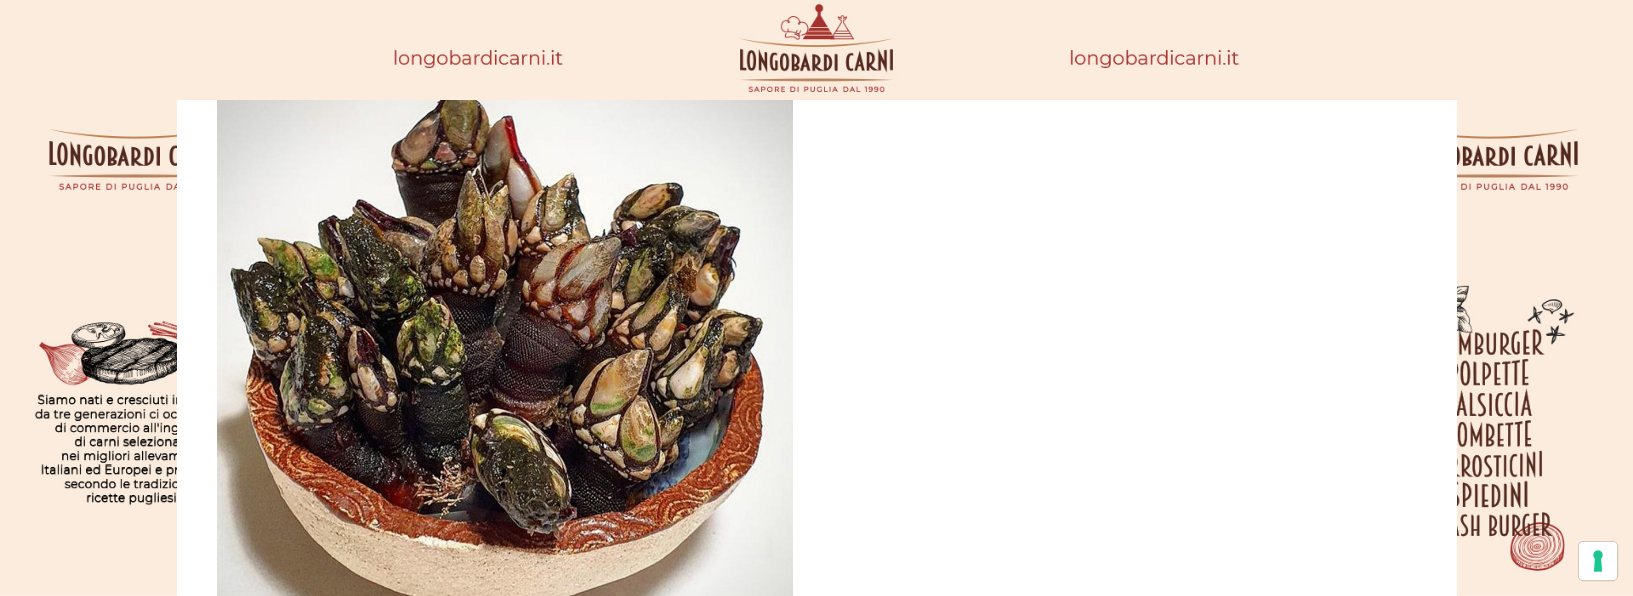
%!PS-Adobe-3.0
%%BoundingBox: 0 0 1633 596
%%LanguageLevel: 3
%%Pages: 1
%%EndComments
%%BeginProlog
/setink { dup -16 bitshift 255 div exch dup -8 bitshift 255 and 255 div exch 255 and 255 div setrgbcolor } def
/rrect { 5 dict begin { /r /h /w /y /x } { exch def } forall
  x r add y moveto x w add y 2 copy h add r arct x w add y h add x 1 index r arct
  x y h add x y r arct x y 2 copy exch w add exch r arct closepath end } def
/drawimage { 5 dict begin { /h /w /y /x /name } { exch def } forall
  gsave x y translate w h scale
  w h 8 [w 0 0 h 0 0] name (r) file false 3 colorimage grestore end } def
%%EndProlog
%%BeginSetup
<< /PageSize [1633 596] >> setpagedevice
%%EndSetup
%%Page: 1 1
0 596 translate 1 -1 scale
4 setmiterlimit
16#FFFFFF setink
0 0 1633 596 rectfill
(img1.raw) 0 100 1633 496 drawimage
(img2.raw) 0 0 1633 100 drawimage
177 100 1280 496 rectfill
(img3.raw) 217 100 576 496 drawimage
16#D6C9BC setink
1578.5 541.5 39 39 4.5 rrect stroke
16#FFFFFF setink
1579 542 38 38 4 rrect fill
(img4.raw) 1593 550 10 22 drawimage
showpage
%%EOF
